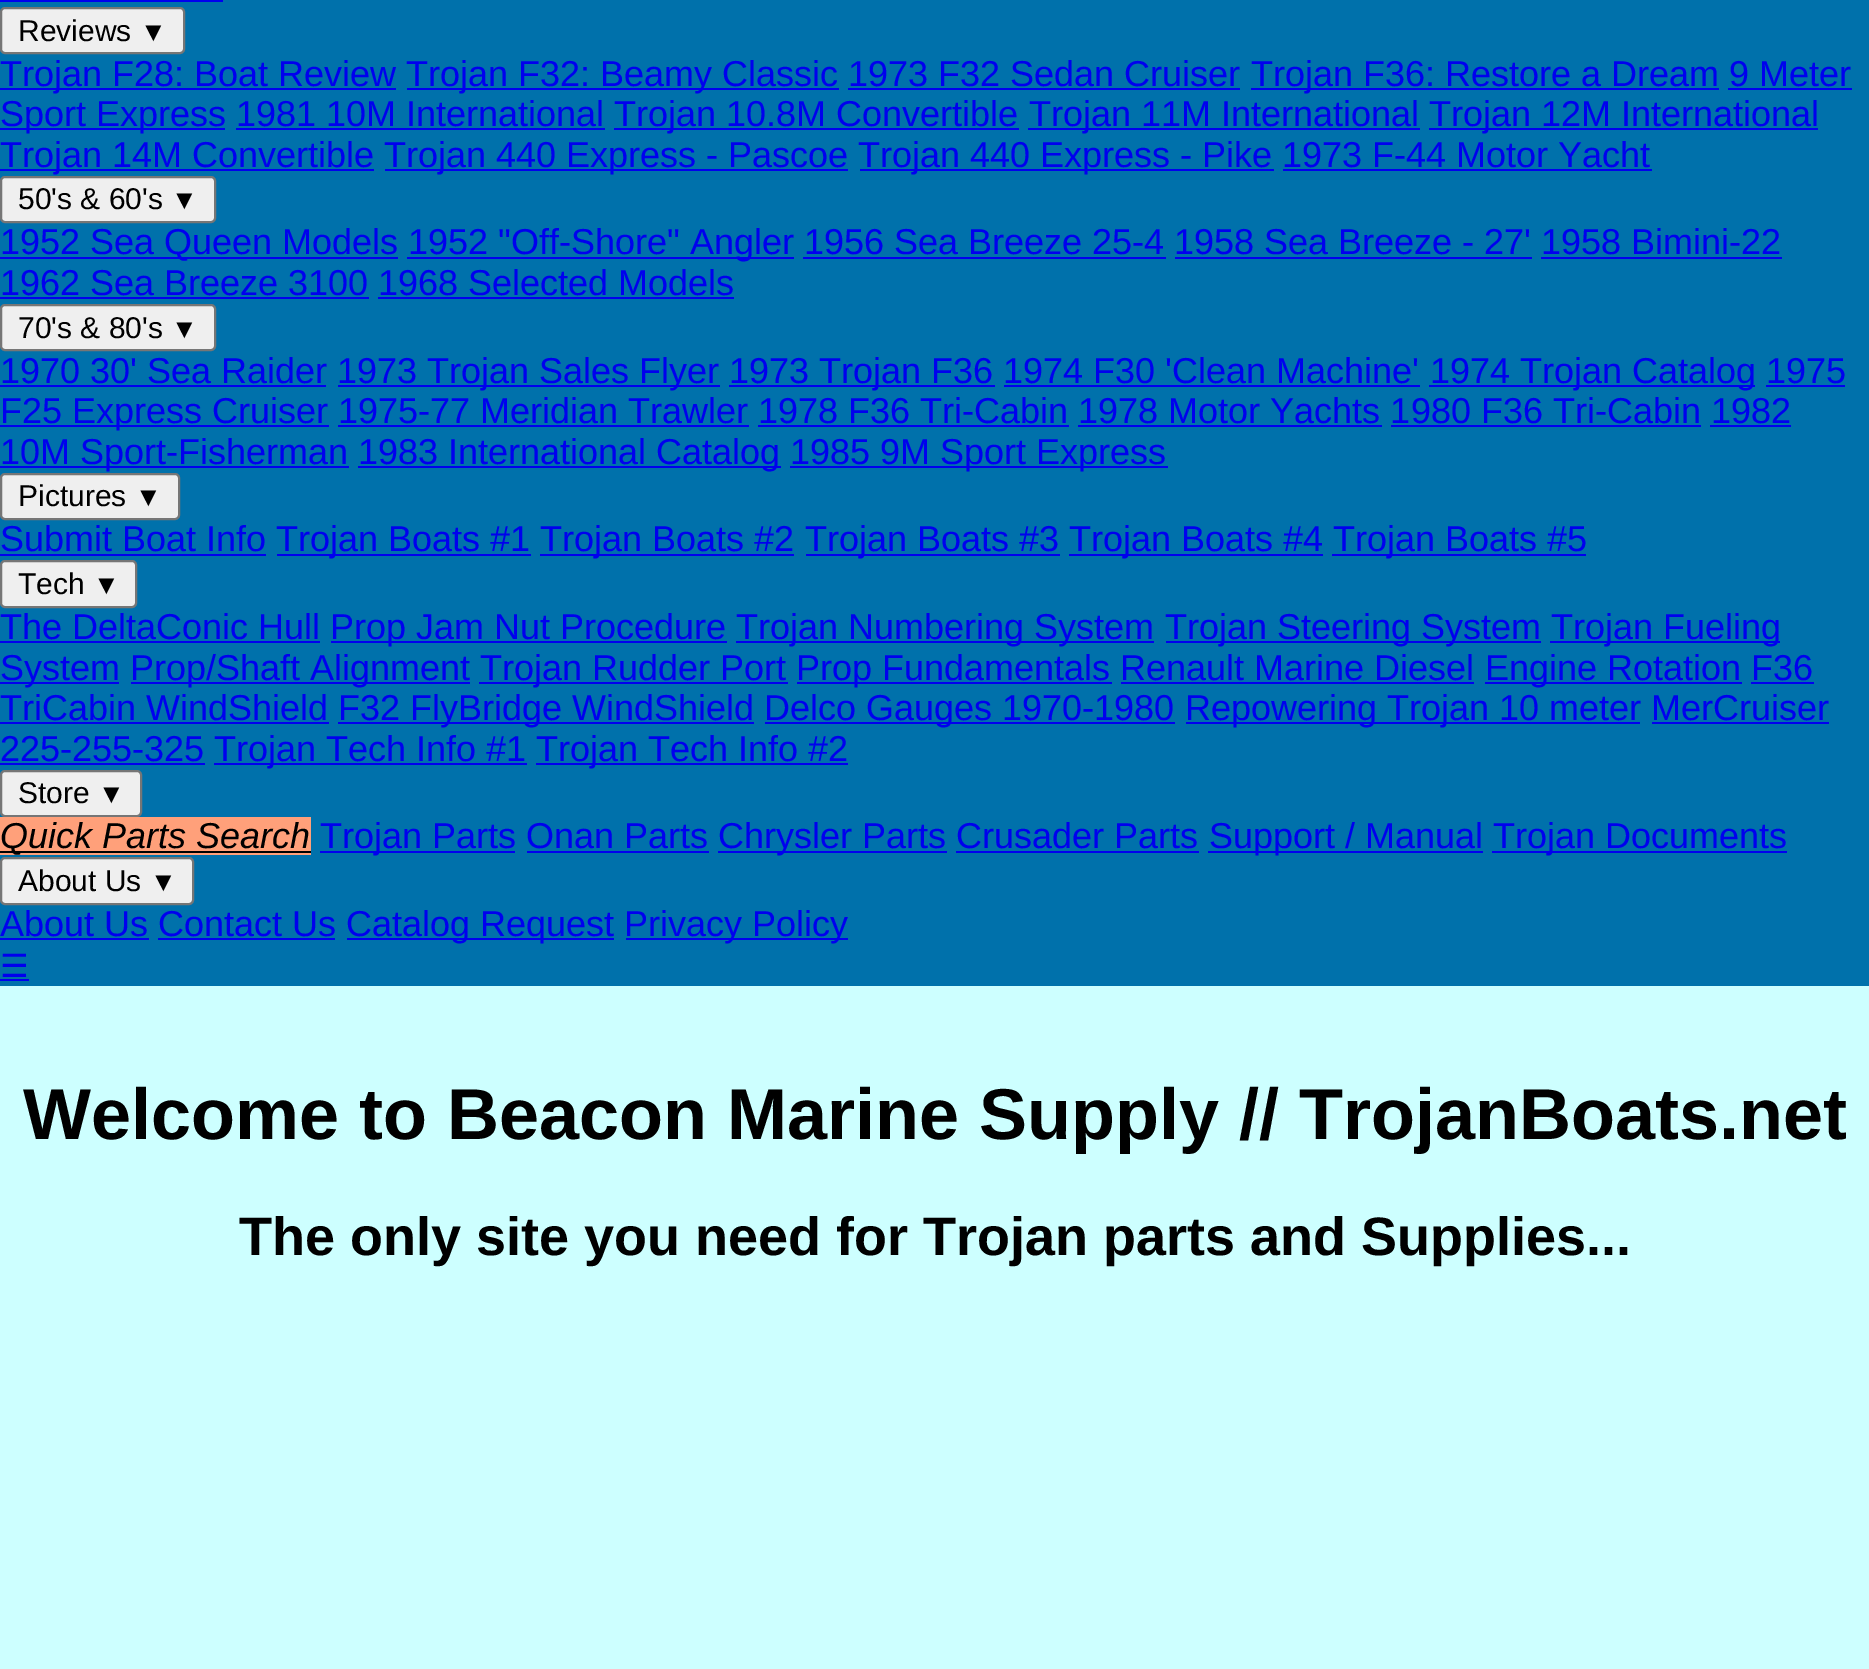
%!PS-Adobe-3.0
%%BoundingBox: 0 0 1869 1669
%%LanguageLevel: 3
%%Pages: 1
%%EndComments
%%BeginProlog
/setink { dup -16 bitshift 255 div exch dup -8 bitshift 255 and 255 div exch 255 and 255 div setrgbcolor } def
/usefont { [ exch dup neg 0 0 3 -1 roll 0 0 ] selectfont } def
/rrect { 5 dict begin { /r /h /w /y /x } { exch def } forall
  x r add y moveto x w add y 2 copy h add r arct x w add y h add x 1 index r arct
  x y h add x y r arct x y 2 copy exch w add exch r arct closepath end } def
%%EndProlog
%%BeginSetup
<< /PageSize [1869 1669] >> setpagedevice
%%EndSetup
%%Page: 1 1
0 1669 translate 1 -1 scale
4 setmiterlimit
16#0071AB setink
0 0 1869 1669 rectfill
16#0000EE setink
0 0 223 2 rectfill
16#EFEFEF setink
1 8 183 45 4 rrect gsave fill grestore
16#767676 setink
2 setlinewidth
stroke
/LiberationSans-Regular 30 usefont
16#000000 setink
18 41 moveto (Reviews) show
/LiberationSans-Regular 27 usefont
140 41 moveto (▼) show
16#0000EE setink
0 88 396 2 rectfill
/LiberationSans-Regular 36 usefont
0 86 moveto (Trojan F28: Boat Review) show
407 88 432 2 rectfill
406 86 moveto (Trojan F32: Beamy Classic 1973 F32 Sedan Cruiser) show
1251 88 468 2 rectfill
1251 86 moveto (Trojan F36: Restore a Dream 9 Meter) show
848 88 392 2 rectfill
0 128 225 2 rectfill
0 126 moveto (Sport Express 1981 10M International) show
1728 88 124 2 rectfill
614 128 405 2 rectfill
614 126 moveto (Trojan 10.8M Convertible) show
1028 128 392 2 rectfill
1029 126 moveto (Trojan 11M International) show
1429 128 389 2 rectfill
1429 126 moveto (Trojan 12M International) show
236 128 369 2 rectfill
0 169 374 2 rectfill
0 167 moveto (Trojan 14M Convertible) show
385 169 463 2 rectfill
384 167 moveto (Trojan 440 Express - Pascoe) show
860 169 414 2 rectfill
858 167 moveto (Trojan 440 Express - Pike 1973 F-44 Motor Yacht) show
1283 169 369 2 rectfill
16#EFEFEF setink
1 177 214 45 4 rrect gsave fill grestore
16#767676 setink
stroke
/LiberationSans-Regular 30 usefont
16#000000 setink
18 209 moveto (50's & 60's) show
/LiberationSans-Regular 27 usefont
171 209 moveto (▼) show
16#0000EE setink
0 257 398 2 rectfill
/LiberationSans-Regular 36 usefont
0 254 moveto (1952 Sea Queen Models) show
407 257 387 2 rectfill
408 254 moveto (1952 "Off-Shore" Angler 1956 Sea Breeze 25-4 1958 Sea Breeze - 27' 1958 Bimini-22) show
[
    [803 257 363 2 16#0000EE]
    [1175 257 357 2 16#0000EE]
    [1541 257 241 2 16#0000EE]
] { aload pop setink rectfill } forall
0 295 moveto (1962 Sea Breeze 3100 1968 Selected Models) show
0 297 369 2 rectfill
378 297 356 2 rectfill
16#EFEFEF setink
1 305 214 45 4 rrect gsave fill grestore
16#767676 setink
stroke
/LiberationSans-Regular 30 usefont
16#000000 setink
18 338 moveto (70's & 80's) show
/LiberationSans-Regular 27 usefont
171 338 moveto (▼) show
/LiberationSans-Regular 36 usefont
16#0000EE setink
0 383 moveto (1970 30' Sea Raider) show
0 385 326 2 rectfill
338 385 382 2 rectfill
337 383 moveto (1973 Trojan Sales Flyer) show
729 385 266 2 rectfill
729 383 moveto (1973 Trojan F36 1974 F30 'Clean Machine') show
1429 385 326 2 rectfill
1430 383 moveto (1974 Trojan Catalog 1975) show
1004 385 416 2 rectfill
0 425 329 2 rectfill
0 423 moveto (F25 Express Cruiser 1975-77 Meridian Trawler 1978 F36 Tri-Cabin 1978 Motor Yachts 1980 F36 Tri-Cabin 1982) show
[
    [1766 385 79 2 16#0000EE]
    [338 425 411 2 16#0000EE]
    [758 425 311 2 16#0000EE]
    [1078 425 304 2 16#0000EE]
    [1391 425 310 2 16#0000EE]
    [0 466 349 2 16#0000EE]
] { aload pop setink rectfill } forall
0 464 moveto (10M Sport-Fisherman) show
1710 425 81 2 rectfill
358 466 423 2 rectfill
358 464 moveto (1983 International Catalog) show
790 466 378 2 rectfill
790 464 moveto (1985 9M Sport Express) show
16#EFEFEF setink
1 474 178 45 4 rrect gsave fill grestore
16#767676 setink
stroke
/LiberationSans-Regular 30 usefont
16#000000 setink
18 506 moveto (Pictures) show
/LiberationSans-Regular 27 usefont
135 506 moveto (▼) show
/LiberationSans-Regular 36 usefont
16#0000EE setink
0 551 moveto (Submit Boat Info) show
0 554 266 2 rectfill
277 554 254 2 rectfill
276 551 moveto (Trojan Boats #1) show
540 554 254 2 rectfill
540 551 moveto (Trojan Boats #2) show
806 554 254 2 rectfill
805 551 moveto (Trojan Boats #3) show
1069 554 254 2 rectfill
1069 551 moveto (Trojan Boats #4) show
1332 554 254 2 rectfill
1333 551 moveto (Trojan Boats #5) show
16#EFEFEF setink
1 561 135 46 4 rrect gsave fill grestore
16#767676 setink
stroke
/LiberationSans-Regular 30 usefont
16#000000 setink
18 594 moveto (Tech) show
/LiberationSans-Regular 27 usefont
93 594 moveto (▼) show
/LiberationSans-Regular 36 usefont
16#0000EE setink
0 639 moveto (The DeltaConic Hull) show
0 641 320 2 rectfill
331 641 396 2 rectfill
330 639 moveto (Prop Jam Nut Procedure) show
736 641 418 2 rectfill
736 639 moveto (Trojan Numbering System) show
1166 641 375 2 rectfill
1165 639 moveto (Trojan Steering System) show
1550 641 230 2 rectfill
1551 639 moveto (Trojan Fueling) show
0 682 119 2 rectfill
0 680 moveto (System) show
131 682 339 2 rectfill
130 680 moveto (Prop/Shaft Alignment) show
479 682 309 2 rectfill
480 680 moveto (Trojan Rudder Port) show
797 682 315 2 rectfill
796 680 moveto (Prop Fundamentals Renault Marine Diesel) show
1485 682 257 2 rectfill
1485 680 moveto (Engine Rotation F36) show
1121 682 353 2 rectfill
0 720 moveto (TriCabin WindShield) show
[
    [1751 682 63 2 16#0000EE]
    [0 722 329 2 16#0000EE]
    [338 722 416 2 16#0000EE]
] { aload pop setink rectfill } forall
338 720 moveto (F32 FlyBridge WindShield) show
765 722 410 2 rectfill
764 720 moveto (Delco Gauges 1970-1980) show
1186 722 454 2 rectfill
1185 720 moveto (Repowering Trojan 10 meter MerCruiser) show
0 761 moveto (225-255-325) show
[
    [1652 722 177 2 16#0000EE]
    [0 763 205 2 16#0000EE]
    [214 763 313 2 16#0000EE]
] { aload pop setink rectfill } forall
214 761 moveto (Trojan Tech Info #1) show
536 763 312 2 rectfill
536 761 moveto (Trojan Tech Info #2) show
16#EFEFEF setink
1 771 140 45 4 rrect gsave fill grestore
16#767676 setink
stroke
/LiberationSans-Regular 30 usefont
16#000000 setink
18 803 moveto (Store) show
/LiberationSans-Regular 27 usefont
98 803 moveto (▼) show
16#FFA07A setink
0 817 311 38 rectfill
16#000000 setink
0 851 311 2 rectfill
/LiberationSans-Italic 36 usefont
0 848 moveto (Quick Parts Search) show
16#0000EE setink
320 851 195 2 rectfill
/LiberationSans-Regular 36 usefont
320 848 moveto (Trojan Parts Onan Parts) show
718 851 229 2 rectfill
718 848 moveto (Chrysler Parts Crusader Parts) show
1208 851 275 2 rectfill
1209 848 moveto (Support / Manual) show
1492 851 295 2 rectfill
1493 848 moveto (Trojan Documents) show
527 851 182 2 rectfill
956 851 243 2 rectfill
16#EFEFEF setink
1 858 192 46 4 rrect gsave fill grestore
16#767676 setink
stroke
/LiberationSans-Regular 30 usefont
16#000000 setink
18 891 moveto (About Us) show
/LiberationSans-Regular 27 usefont
150 891 moveto (▼) show
/LiberationSans-Regular 36 usefont
16#0000EE setink
0 936 moveto (About Us Contact Us) show
0 938 149 2 rectfill
347 938 267 2 rectfill
346 936 moveto (Catalog Request) show
626 938 222 2 rectfill
624 936 moveto (Privacy Policy) show
158 938 177 2 rectfill
/DejaVuSans-Regular 32 usefont
0 977 moveto (☰) show
0 979 29 2 rectfill
16#CDFFFF setink
0 986 1869 683 rectfill
/LiberationSans-Bold 72 usefont
16#000000 setink
23 1139 moveto (Welcome to Beacon Marine Supply // TrojanBoats.net) show
/LiberationSans-Bold 54 usefont
239 1255 moveto (The only site you need for Trojan parts and Supplies...) show
showpage
%%EOF
